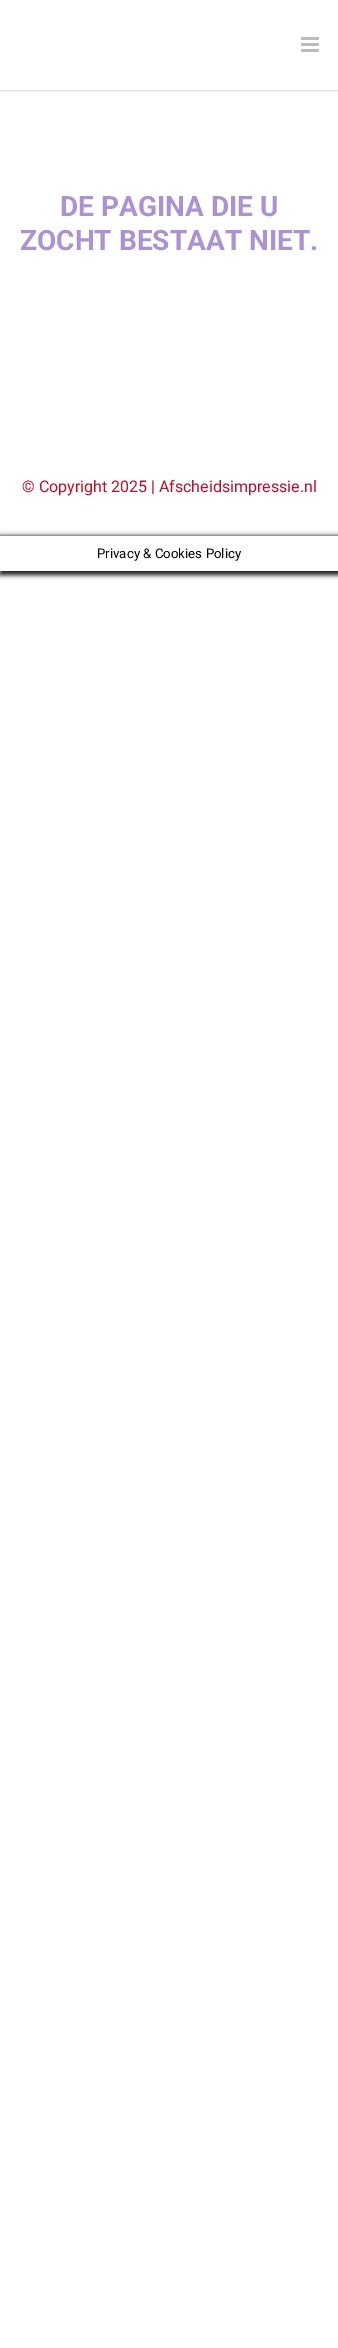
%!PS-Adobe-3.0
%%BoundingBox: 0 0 338 2348
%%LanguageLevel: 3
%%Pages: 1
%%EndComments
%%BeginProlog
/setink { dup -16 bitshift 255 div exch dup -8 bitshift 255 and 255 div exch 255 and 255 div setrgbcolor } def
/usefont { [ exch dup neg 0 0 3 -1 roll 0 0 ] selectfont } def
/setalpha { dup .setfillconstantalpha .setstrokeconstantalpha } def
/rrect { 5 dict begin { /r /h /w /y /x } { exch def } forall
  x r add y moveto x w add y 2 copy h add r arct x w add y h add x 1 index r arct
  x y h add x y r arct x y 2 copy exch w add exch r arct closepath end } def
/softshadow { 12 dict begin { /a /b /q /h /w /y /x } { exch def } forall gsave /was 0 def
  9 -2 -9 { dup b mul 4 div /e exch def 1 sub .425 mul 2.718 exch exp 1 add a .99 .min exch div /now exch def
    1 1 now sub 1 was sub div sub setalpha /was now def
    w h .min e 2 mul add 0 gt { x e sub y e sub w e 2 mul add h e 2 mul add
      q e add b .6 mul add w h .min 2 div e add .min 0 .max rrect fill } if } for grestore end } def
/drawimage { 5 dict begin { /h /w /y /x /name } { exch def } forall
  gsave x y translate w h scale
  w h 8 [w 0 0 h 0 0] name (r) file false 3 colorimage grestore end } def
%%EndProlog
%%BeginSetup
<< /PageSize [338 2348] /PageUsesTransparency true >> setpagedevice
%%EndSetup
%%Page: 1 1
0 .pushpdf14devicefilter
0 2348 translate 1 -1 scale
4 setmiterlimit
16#FFFFFF setink
0 0 338 2348 rectfill
gsave
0 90 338 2 rectclip
16#000000 setink
-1 -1 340 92 0 1 0.16 softshadow
grestore
(img1.raw) 301 37 18 15 drawimage
/Roboto-Bold 28 usefont
16#AC92D3 setink
60 216 moveto (DE PAGINA DIE U) show
20 250 moveto (ZOCHT BESTAAT NIET.) show
/Roboto-Regular 16 usefont
16#BA102A setink
22 492 moveto (© Copyright 2025 | Afscheidsimpressie.nl) show
gsave
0 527 moveto 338 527 lineto 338 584 lineto 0 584 lineto closepath 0 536 moveto 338 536 lineto 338 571 lineto 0 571 lineto closepath eoclip newpath
16#161616 setink
0 536 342 39 0 2.5 1 softshadow
grestore
/Roboto-Regular 13.25 usefont
16#000000 setink
97 558 moveto (Privacy & Cookies Policy) show
.poppdf14devicefilter showpage
%%EOF
